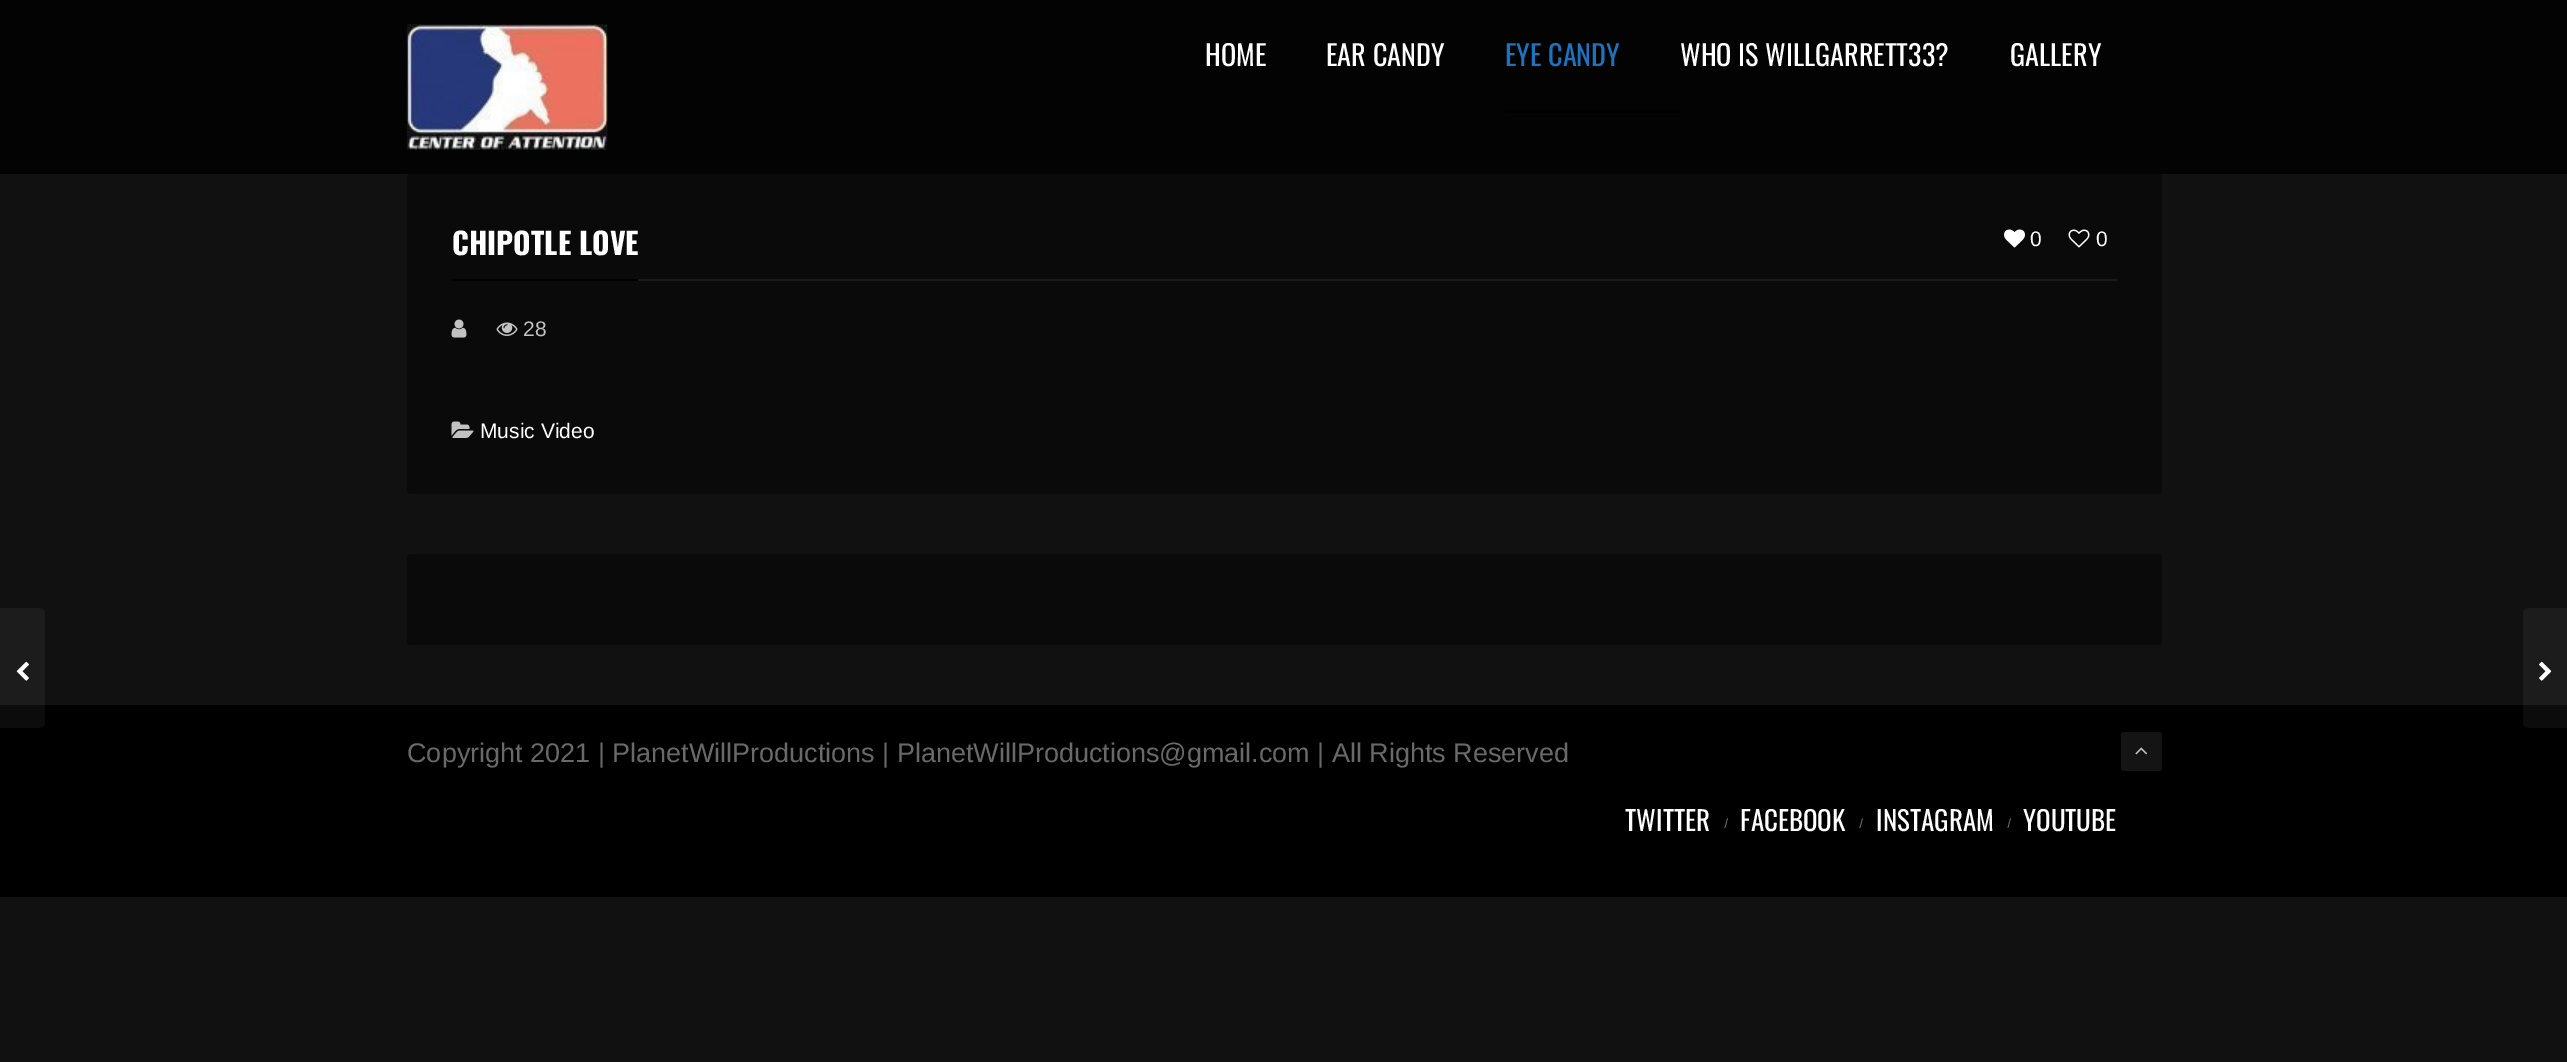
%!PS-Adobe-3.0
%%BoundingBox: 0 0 2567 1062
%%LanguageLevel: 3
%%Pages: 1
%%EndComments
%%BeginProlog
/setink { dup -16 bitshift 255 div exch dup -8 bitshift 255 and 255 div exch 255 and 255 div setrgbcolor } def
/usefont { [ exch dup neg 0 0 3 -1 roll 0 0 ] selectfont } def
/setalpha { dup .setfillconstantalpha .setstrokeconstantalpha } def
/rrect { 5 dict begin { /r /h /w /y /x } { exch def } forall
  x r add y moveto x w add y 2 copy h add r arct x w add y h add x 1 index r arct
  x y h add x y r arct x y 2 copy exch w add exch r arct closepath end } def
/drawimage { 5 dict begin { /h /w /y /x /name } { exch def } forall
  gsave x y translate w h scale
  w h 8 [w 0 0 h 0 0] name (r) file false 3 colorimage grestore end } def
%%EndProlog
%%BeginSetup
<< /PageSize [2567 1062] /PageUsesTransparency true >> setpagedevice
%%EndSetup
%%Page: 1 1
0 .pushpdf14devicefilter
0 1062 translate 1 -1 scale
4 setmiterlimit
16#111111 setink
0 0 2567 1062 rectfill
16#030303 setink
0 0 2567 174 rectfill
(img1.raw) 406 24 202 126 drawimage
/Oswald-Regular 28.25 usefont
16#FFFFFF setink
1205 66 moveto (HOME) show
1326 66 moveto (EAR CANDY) show
16#1E73BE setink
1505 66 moveto (EYE CANDY) show
16#FFFFFF setink
1680 66 moveto (WHO IS WILLGARRETT33?) show
2010 66 moveto (GALLERY) show
16#000000 setink
1505 110 175 3 rectfill
16#0A0A0A setink
407 174 1755 320 3 rrect fill
16#000000 setink
452 279 186 2 rectfill
/Oswald-Bold 30 usefont
16#FFFFFF setink
452 255 moveto (CHIPOTLE LOVE) show
(img2.raw) 2004 229 21 19 drawimage
/LiberationSans-Regular 21 usefont
2030 246 moveto (0) show
(img3.raw) 2068 229 22 19 drawimage
2096 246 moveto (0) show
16#1A1A1A setink
638 279 1479 2 rectfill
(img4.raw) 451 319 16 19 drawimage
(img5.raw) 496 322 22 14 drawimage
16#C2C2C2 setink
523 336 moveto (28) show
(img6.raw) 451 421 23 17 drawimage
16#FFFFFF setink
480 438 moveto (Music Video) show
16#0A0A0A setink
407 554 1755 91 3 rrect fill
16#000000 setink
0 705 2567 192 rectfill
0.07 setalpha
16#A7A7A7 setink
-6 608 moveto 39 608 lineto 42.5 608 45 610.5 45 614 curveto 45 722 lineto 45 725.5 42.5 728 39 728 curveto -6 728 lineto closepath fill
1 setalpha
(img7.raw) 16 661 13 20 drawimage
0.07 setalpha
2529 608 moveto 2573 608 lineto 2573 728 lineto 2529 728 lineto 2525.5 728 2523 725.5 2523 722 curveto 2523 614 lineto 2523 610.5 2525.5 608 2529 608 curveto closepath fill
1 setalpha
(img8.raw) 2539 661 13 20 drawimage
/LiberationSans-Regular 27 usefont
16#696969 setink
407 762 moveto (Copyright 2021 | PlanetWillProductions | PlanetWillProductions@gmail.com | All Rights Reserved) show
16#141414 setink
2121 732 41 39 3 rrect fill
(img9.raw) 2135 747 13 8 drawimage
/Oswald-Regular 27 usefont
16#FFFFFF setink
1625 831 moveto (TWITTER) show
/Oswald-Regular 12 usefont
16#696969 setink
1724 828 moveto (/) show
/Oswald-Regular 27 usefont
16#FFFFFF setink
1740 831 moveto (FACEBOOK) show
/Oswald-Regular 12 usefont
16#696969 setink
1859 828 moveto (/) show
/Oswald-Regular 27 usefont
16#FFFFFF setink
1876 831 moveto (INSTAGRAM) show
/Oswald-Regular 12 usefont
16#696969 setink
2007 828 moveto (/) show
/Oswald-Regular 27 usefont
16#FFFFFF setink
2023 831 moveto (YOUTUBE) show
.poppdf14devicefilter showpage
%%EOF
